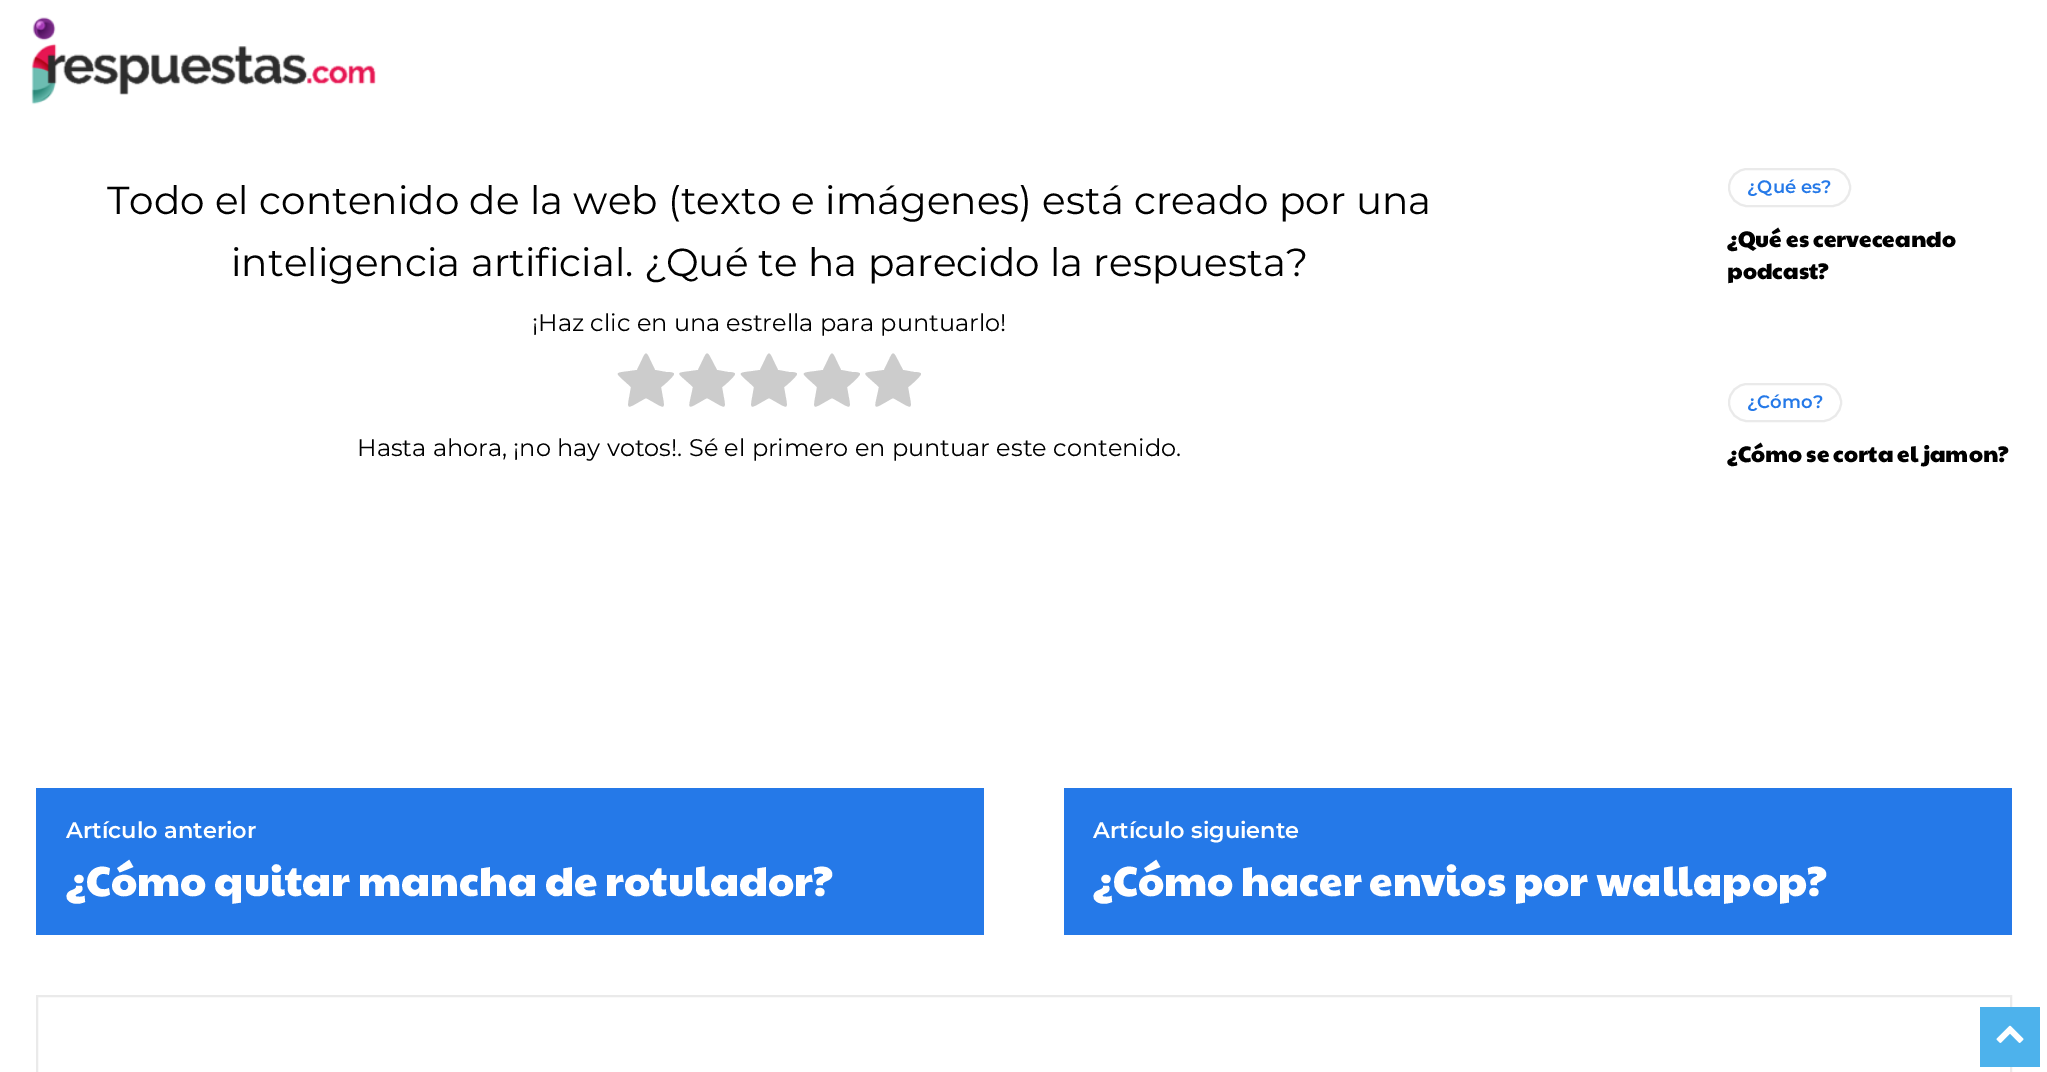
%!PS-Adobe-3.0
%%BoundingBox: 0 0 2047 1072
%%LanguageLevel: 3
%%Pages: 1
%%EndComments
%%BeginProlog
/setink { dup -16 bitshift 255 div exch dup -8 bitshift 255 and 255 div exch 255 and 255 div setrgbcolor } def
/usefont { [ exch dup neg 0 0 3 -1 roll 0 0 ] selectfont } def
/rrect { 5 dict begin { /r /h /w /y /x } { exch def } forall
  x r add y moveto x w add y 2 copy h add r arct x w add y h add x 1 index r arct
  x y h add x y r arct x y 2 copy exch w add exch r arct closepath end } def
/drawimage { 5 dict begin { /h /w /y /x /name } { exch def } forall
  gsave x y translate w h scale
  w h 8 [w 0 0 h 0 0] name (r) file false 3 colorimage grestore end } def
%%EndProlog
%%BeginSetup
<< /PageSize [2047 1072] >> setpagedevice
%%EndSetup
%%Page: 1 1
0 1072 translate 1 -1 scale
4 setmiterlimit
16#FFFFFF setink
0 0 2047 1072 rectfill
(img1.raw) 31 17 345 88 drawimage
/Montserrat-Regular 39 usefont
16#000000 setink
107 214 moveto (Todo el contenido de la web \(texto e imágenes\) está creado por una) show
231 276 moveto (inteligencia artificial. ¿Qué te ha parecido la respuesta?) show
/Montserrat-Regular 24 usefont
532 331 moveto (¡Haz clic en una estrella para puntuarlo!) show
16#CCCCCC setink
674 374 moveto 674 376 663 386 661 387 curveto 665 412 668 410 646 398 curveto 624 410 627 412 631 387 curveto 613 370 612 374 637 370 curveto 648 348 644 348 655 370 curveto 666 372 lineto 667 372 674 372 674 374 curveto closepath fill
735 374 moveto 735 376 724 386 722 387 curveto 726 412 729 410 707 398 curveto 685 410 688 412 693 387 curveto 675 370 673 374 698 370 curveto 709 348 705 348 717 370 curveto 728 372 lineto 728 372 735 372 735 374 curveto closepath fill
797 374 moveto 797 376 786 386 784 387 curveto 788 412 791 410 769 398 curveto 747 410 750 412 754 387 curveto 736 370 735 374 760 370 curveto 771 348 767 348 778 370 curveto 789 372 lineto 790 372 797 372 797 374 curveto closepath fill
860 374 moveto 860 376 849 386 847 387 curveto 851 412 854 410 832 398 curveto 810 410 813 412 817 387 curveto 799 370 798 374 823 370 curveto 834 348 830 348 841 370 curveto 852 372 lineto 853 372 860 372 860 374 curveto closepath fill
921 374 moveto 921 376 910 386 908 387 curveto 912 412 915 410 893 398 curveto 871 410 874 412 879 387 curveto 861 370 859 374 884 370 curveto 895 348 891 348 903 370 curveto 914 372 lineto 914 372 921 372 921 374 curveto closepath fill
16#000000 setink
357 456 moveto (Hasta ahora, ¡no hay votos!. Sé el primero en puntuar este contenido.) show
16#EAEAEA setink
2 setlinewidth
1729 169 121 37 18.5 rrect stroke
/Montserrat-SemiBold 18 usefont
16#2579E8 setink
1747 193 moveto (¿Qué es?) show
/PaytoneOne-Regular 22.5 usefont
16#000000 setink
1727 247 moveto (¿Qué es cerveceando) show
1727 279 moveto (podcast?) show
16#EAEAEA setink
1729 384 112 37 18.5 rrect stroke
/Montserrat-SemiBold 18 usefont
16#2579E8 setink
1747 408 moveto (¿Cómo?) show
/PaytoneOne-Regular 22.5 usefont
16#000000 setink
1727 462 moveto (¿Cómo se corta el jamon?) show
16#2579E8 setink
36 788 948 147 rectfill
/Montserrat-SemiBold 22.5 usefont
16#FFFFFF setink
66 838 moveto (Artículo anterior) show
/PaytoneOne-Regular 42 usefont
66 896 moveto (¿Cómo quitar mancha de rotulador?) show
16#2579E8 setink
1064 788 948 147 rectfill
/Montserrat-SemiBold 22.5 usefont
16#FFFFFF setink
1093 838 moveto (Artículo siguiente) show
/PaytoneOne-Regular 42 usefont
1093 896 moveto (¿Cómo hacer envios por wallapop?) show
16#EAEAEA setink
37 996 1974 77 rectstroke
16#4DB2EC setink
1980 1007 60 60 rectfill
(img2.raw) 1996 1025 28 18 drawimage
showpage
%%EOF
